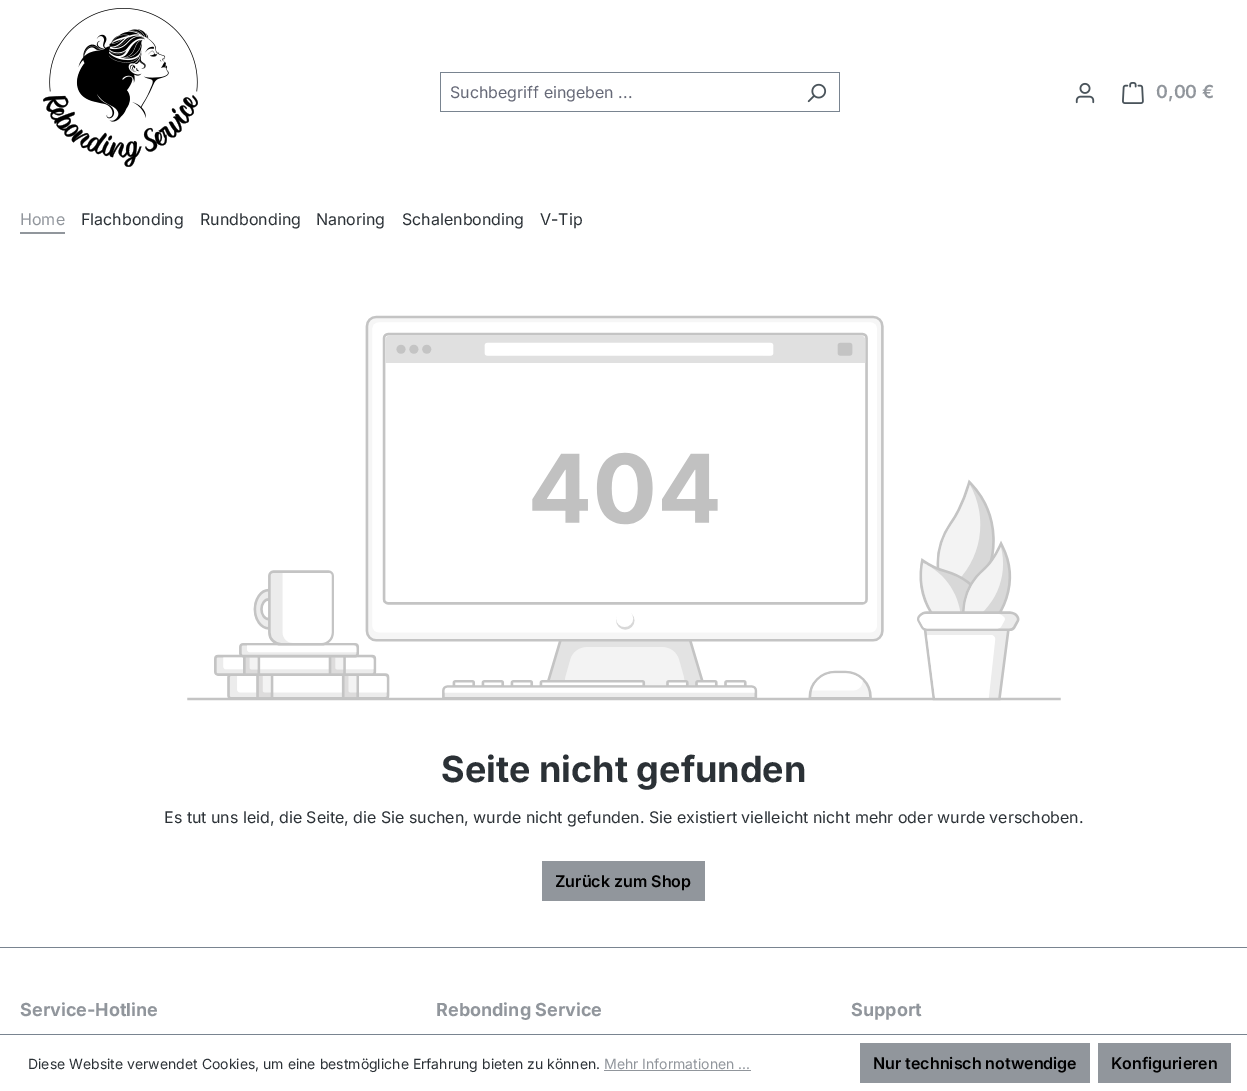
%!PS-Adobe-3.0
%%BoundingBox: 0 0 1247 1091
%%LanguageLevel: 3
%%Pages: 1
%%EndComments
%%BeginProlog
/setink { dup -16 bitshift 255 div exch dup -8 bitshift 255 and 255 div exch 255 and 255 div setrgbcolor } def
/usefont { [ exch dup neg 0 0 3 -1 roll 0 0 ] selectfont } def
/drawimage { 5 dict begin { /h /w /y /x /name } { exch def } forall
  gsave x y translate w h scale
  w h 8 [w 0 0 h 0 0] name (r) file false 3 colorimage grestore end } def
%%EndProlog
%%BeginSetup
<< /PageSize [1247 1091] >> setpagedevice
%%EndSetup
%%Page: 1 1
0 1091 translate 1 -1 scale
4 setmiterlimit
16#FFFFFF setink
0 0 1247 1091 rectfill
(img1.raw) 43 8 155 159 drawimage
[
    [440 72 400 1 16#798490]
    [440 111 354 1 16#798490]
    [440 72 1 40 16#798490]
] { aload pop setink rectfill } forall
/Inter-Regular 16 usefont
16#666977 setink
450 98 moveto (Suchbegriff eingeben ...) show
16#798490 setink
839 72 1 40 rectfill
793 111 47 1 rectfill
(img2.raw) 807 83 20 20 drawimage
(img3.raw) 1075 82 20 22 drawimage
(img4.raw) 1122 82 22 22 drawimage
/Inter-SemiBold 18 usefont
16#91969C setink
1156 98 moveto (0,00 €) show
/Inter-Regular 16 usefont
20 225 moveto (Home) show
20 232 45 2 rectfill
16#2B3136 setink
[
    [(Flachbonding) 81 225]
    [(Rundbonding) 200 225]
    [(Nanoring) 316 225]
    [(Schalenbonding) 402 225]
    [(V-Tip) 540 225]
] { aload pop moveto show } forall
(img5.raw) 187 315 874 386 drawimage
/Inter-Bold 36 usefont
441 782 moveto (Seite nicht gefunden) show
/Inter-Regular 16 usefont
164 823 moveto (Es tut uns leid, die Seite, die Sie suchen, wurde nicht gefunden. Sie existiert vielleicht nicht mehr oder wurde verschoben.) show
16#91969C setink
542 861 163 40 rectfill
/Inter-SemiBold 16 usefont
16#000000 setink
555 887 moveto (Zurück zum Shop) show
16#798490 setink
0 947 1247 1 rectfill
/Inter-Bold 18 usefont
16#91969C setink
[
    [(Service-Hotline) 20 1016]
    [(Rebonding Service) 436 1016]
    [(Support) 851 1016]
] { aload pop moveto show } forall
16#798490 setink
0 1034 1247 1 rectfill
/Inter-Regular 14 usefont
16#2B3136 setink
28 1069 moveto (Diese Website verwendet Cookies, um eine bestmögliche Erfahrung bieten zu können.) show
16#91969C setink
604 1069 moveto (Mehr Informationen ...) show
604 1070 147 1 rectfill
860 1043 230 40 rectfill
/Inter-SemiBold 16 usefont
16#000000 setink
873 1069 moveto (Nur technisch notwendige) show
16#91969C setink
1098 1043 133 40 rectfill
16#000000 setink
1111 1069 moveto (Konfigurieren) show
showpage
%%EOF
